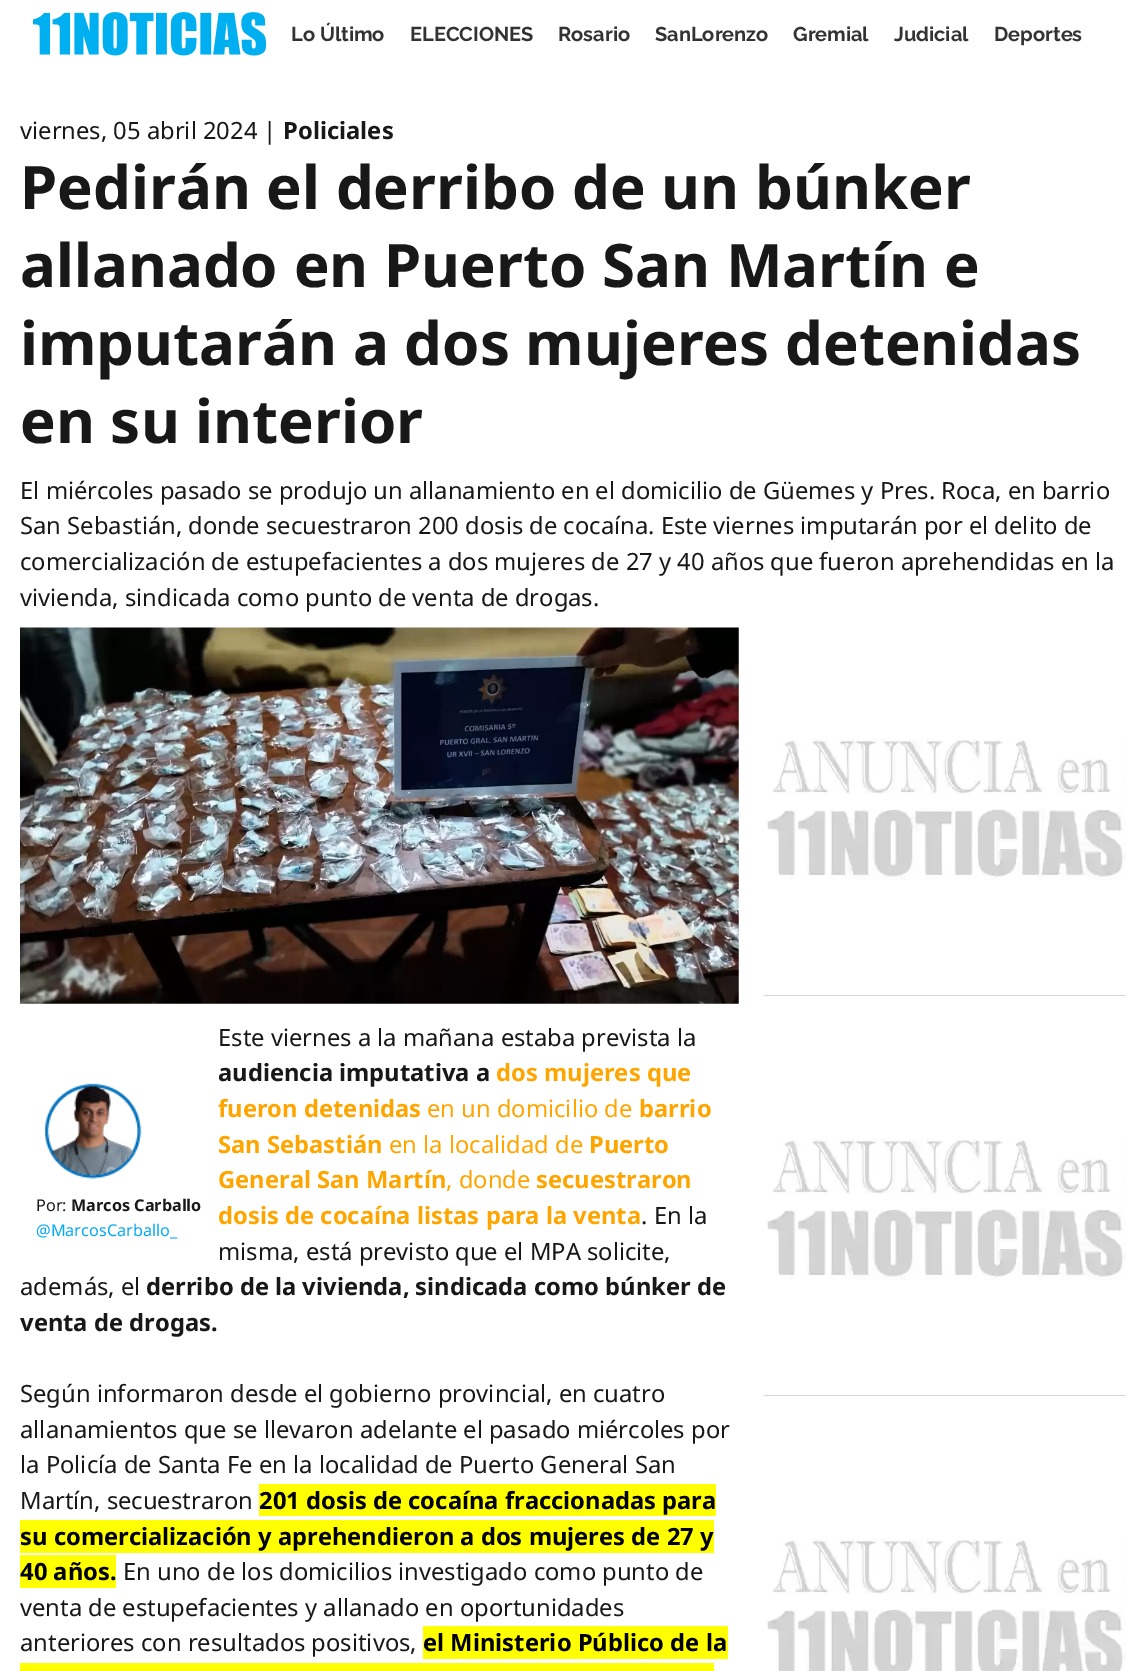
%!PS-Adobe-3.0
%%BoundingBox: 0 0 1146 1671
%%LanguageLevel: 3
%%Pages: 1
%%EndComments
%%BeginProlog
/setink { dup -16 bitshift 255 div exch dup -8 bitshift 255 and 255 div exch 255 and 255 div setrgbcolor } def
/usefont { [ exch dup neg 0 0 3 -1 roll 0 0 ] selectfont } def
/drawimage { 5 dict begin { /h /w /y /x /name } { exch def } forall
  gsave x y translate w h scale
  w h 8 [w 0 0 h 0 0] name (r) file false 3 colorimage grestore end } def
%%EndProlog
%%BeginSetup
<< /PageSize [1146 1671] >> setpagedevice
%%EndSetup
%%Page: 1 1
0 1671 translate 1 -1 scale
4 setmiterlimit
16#FFFFFF setink
0 0 1146 1671 rectfill
(img1.raw) 33 12 233 44 drawimage
/Raleway-Bold 20 usefont
16#333333 setink
[
    [(Lo Último) 291 41]
    [(ELECCIONES) 410 41]
    [(Rosario) 558 41]
    [(SanLorenzo) 655 41]
    [(Gremial) 793 41]
    [(Judicial) 894 41]
    [(Deportes) 994 41]
] { aload pop moveto show } forall
/NotoSans-Regular 23.75 usefont
16#181818 setink
20 139 moveto (viernes, 05 abril 2024 |) show
/NotoSans-Bold 23.75 usefont
283 139 moveto (Policiales) show
/NotoSans-Bold 60 usefont
[
    [(Pedirán el derribo de un búnker) 20 209]
    [(allanado en Puerto San Martín e) 20 287]
    [(imputarán a dos mujeres detenidas) 20 365]
    [(en su interior) 20 443]
] { aload pop moveto show } forall
/NotoSans-Regular 23.75 usefont
[
    [(El miércoles pasado se produjo un allanamiento en el domicilio de Güemes y Pres. Roca, en barrio) 20 499]
    [(San Sebastián, donde secuestraron 200 dosis de cocaína. Este viernes imputarán por el delito de) 20 534]
    [(comercialización de estupefacientes a dos mujeres de 27 y 40 años que fueron aprehendidas en la) 20 570]
    [(vivienda, sindicada como punto de venta de drogas.) 20 606]
] { aload pop moveto show } forall
(img2.raw) 20 627 719 377 drawimage
218 1046 moveto (Este viernes a la mañana estaba prevista la) show
/NotoSans-Bold 23.75 usefont
218 1081 moveto (audiencia imputativa a) show
16#FFA500 setink
496 1081 moveto (dos mujeres que) show
218 1117 moveto (fueron detenidas) show
/NotoSans-Regular 23.75 usefont
427 1117 moveto (en un domicilio de) show
/NotoSans-Bold 23.75 usefont
639 1117 moveto (barrio) show
218 1153 moveto (San Sebastián) show
/NotoSans-Regular 23.75 usefont
389 1153 moveto (en la localidad de) show
/NotoSans-Bold 23.75 usefont
589 1153 moveto (Puerto) show
218 1188 moveto (General San Martín) show
/NotoSans-Regular 23.75 usefont
446 1188 moveto (, donde) show
/NotoSans-Bold 23.75 usefont
536 1188 moveto (secuestraron) show
(img3.raw) 45 1083 97 96 drawimage
/NotoSans-Regular 16.25 usefont
16#181818 setink
36 1211 moveto (Por:) show
/NotoSans-Bold 16.25 usefont
71 1211 moveto (Marcos Carballo) show
/NotoSans-Regular 16.25 usefont
16#03A9F4 setink
36 1236 moveto (@MarcosCarballo_) show
/NotoSans-Bold 23.75 usefont
16#FFA500 setink
218 1224 moveto (dosis de cocaína listas para la venta) show
/NotoSans-Regular 23.75 usefont
16#181818 setink
[
    [(. En la) 641 1224]
    [(misma, está previsto que el MPA solicite,) 218 1260]
    [(además, el) 20 1295]
] { aload pop moveto show } forall
/NotoSans-Bold 23.75 usefont
146 1295 moveto (derribo de la vivienda, sindicada como búnker de) show
20 1331 moveto (venta de drogas.) show
/NotoSans-Regular 23.75 usefont
[
    [(Según informaron desde el gobierno provincial, en cuatro) 20 1402]
    [(allanamientos que se llevaron adelante el pasado miércoles por) 20 1438]
    [(la Policía de Santa Fe en la localidad de Puerto General San) 20 1473]
    [(Martín, secuestraron) 20 1509]
] { aload pop moveto show } forall
16#FFFF00 setink
259 1484 457 32 rectfill
/NotoSans-Bold 23.75 usefont
16#000000 setink
259 1509 moveto (201 dosis de cocaína fraccionadas para) show
16#FFFF00 setink
20 1520 694 33 rectfill
16#000000 setink
20 1545 moveto (su comercialización y aprehendieron a dos mujeres de 27 y) show
16#FFFF00 setink
20 1555 96 33 rectfill
16#000000 setink
20 1580 moveto (40 años.) show
/NotoSans-Regular 23.75 usefont
16#181818 setink
[
    [(En uno de los domicilios investigado como punto de) 123 1580]
    [(venta de estupefacientes y allanado en oportunidades) 20 1616]
    [(anteriores con resultados positivos,) 20 1651]
] { aload pop moveto show } forall
16#FFFF00 setink
423 1626 305 33 rectfill
/NotoSans-Bold 23.75 usefont
16#000000 setink
423 1651 moveto (el Ministerio Público de la) show
16#FFFF00 setink
20 1663 694 8 rectfill
16#D5D5D5 setink
764 995 362 1 rectfill
(img4.raw) 766 739 360 141 drawimage
764 1395 362 1 rectfill
(img4.raw) 766 1139 360 141 drawimage
(img5.raw) 766 1539 360 132 drawimage
showpage
%%EOF
